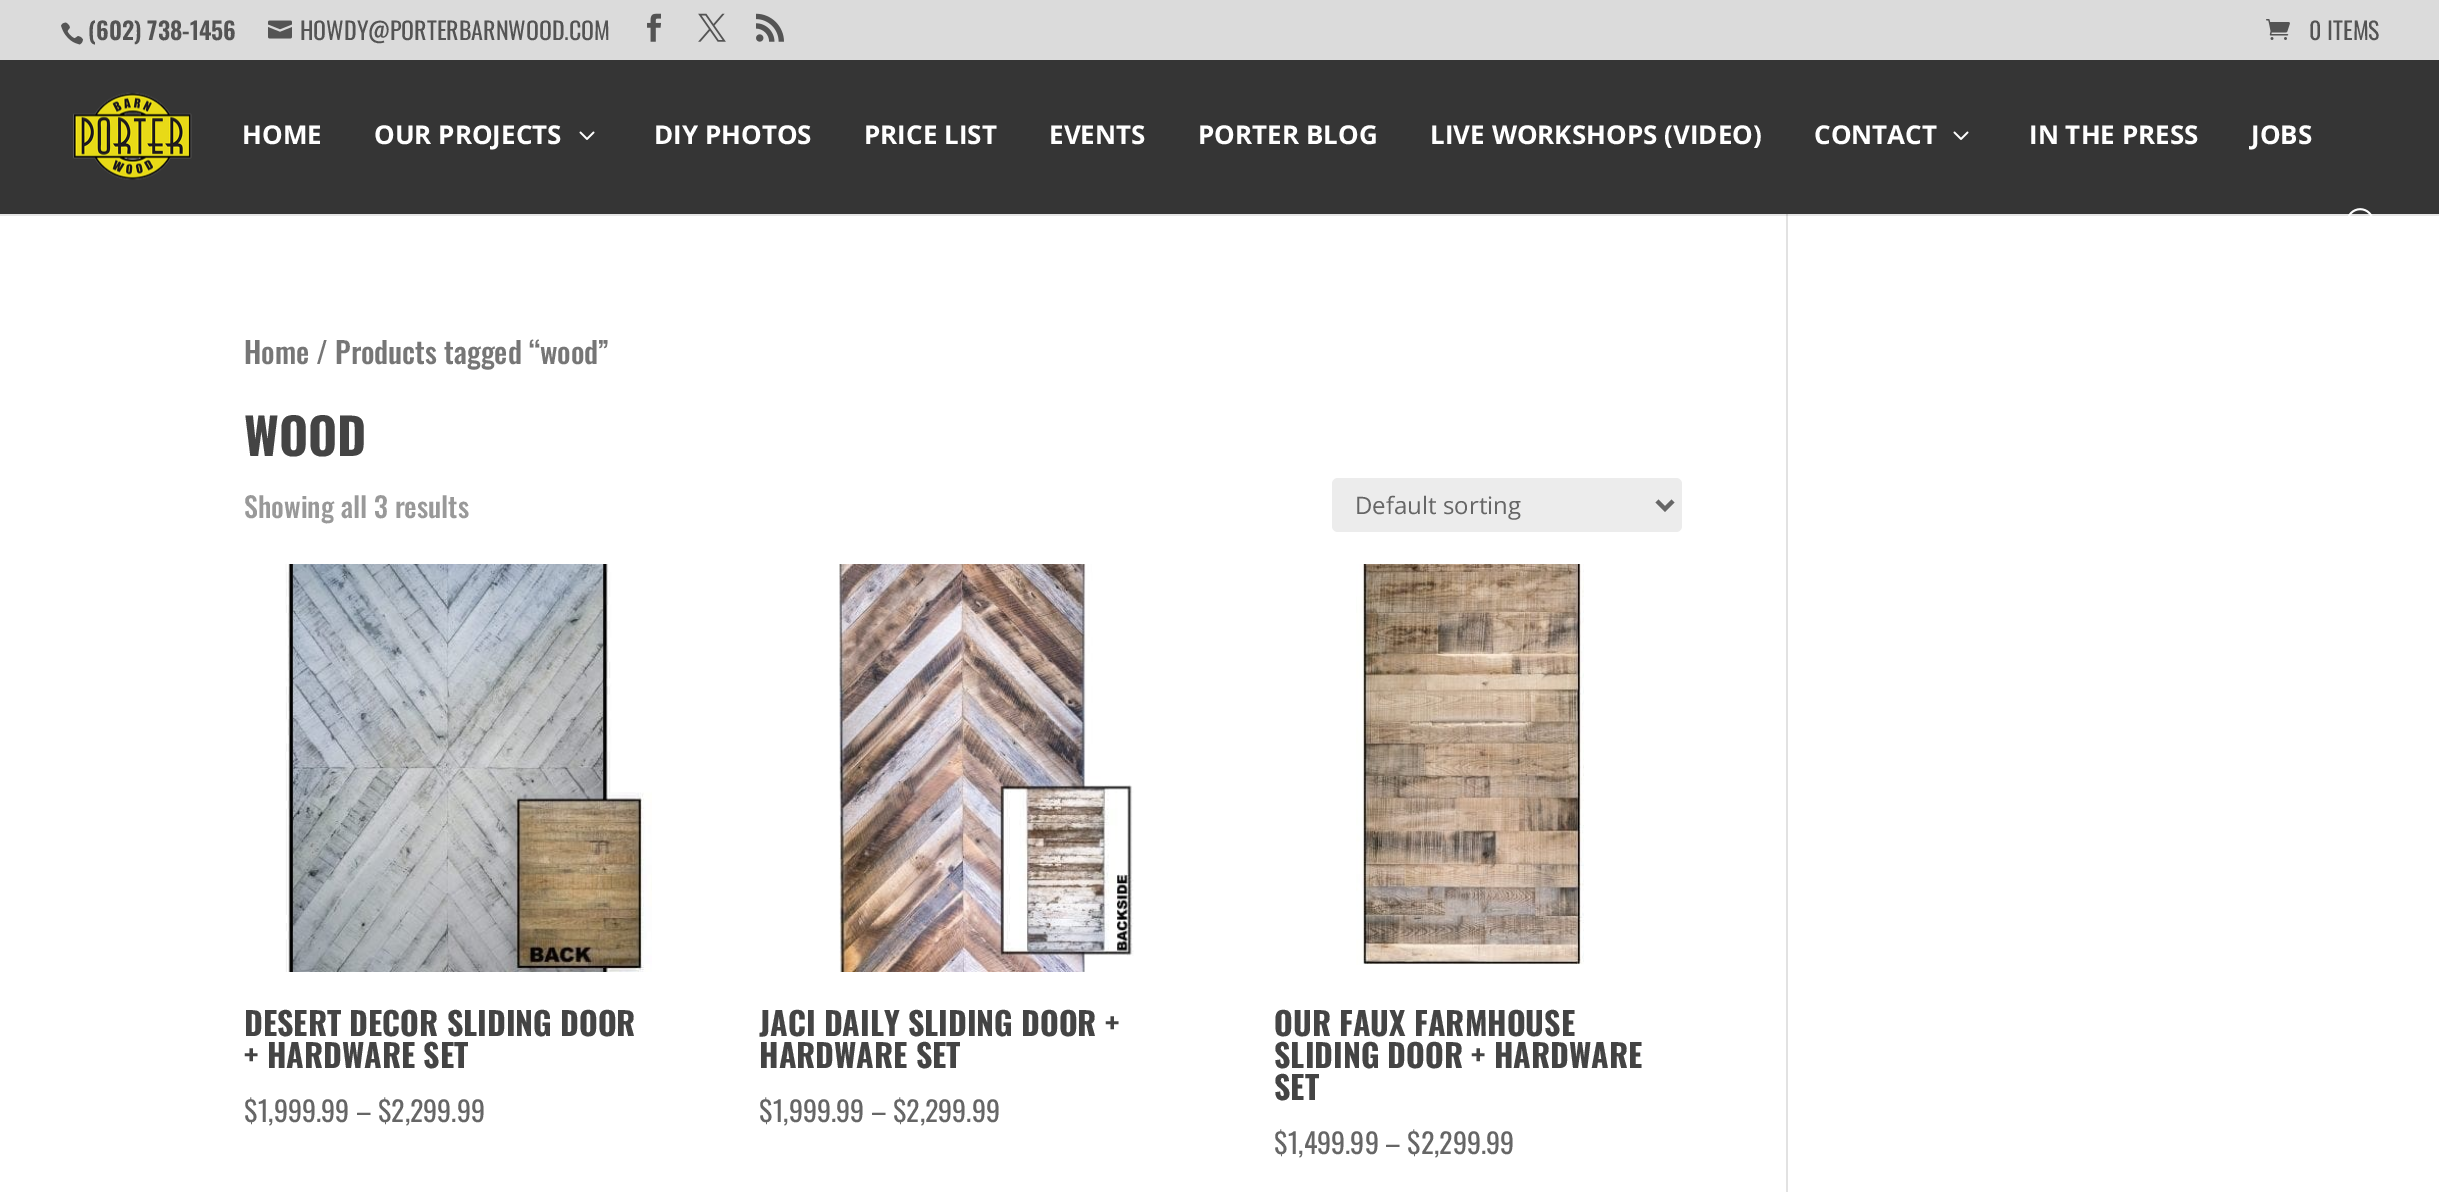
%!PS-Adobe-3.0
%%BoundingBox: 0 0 2439 1192
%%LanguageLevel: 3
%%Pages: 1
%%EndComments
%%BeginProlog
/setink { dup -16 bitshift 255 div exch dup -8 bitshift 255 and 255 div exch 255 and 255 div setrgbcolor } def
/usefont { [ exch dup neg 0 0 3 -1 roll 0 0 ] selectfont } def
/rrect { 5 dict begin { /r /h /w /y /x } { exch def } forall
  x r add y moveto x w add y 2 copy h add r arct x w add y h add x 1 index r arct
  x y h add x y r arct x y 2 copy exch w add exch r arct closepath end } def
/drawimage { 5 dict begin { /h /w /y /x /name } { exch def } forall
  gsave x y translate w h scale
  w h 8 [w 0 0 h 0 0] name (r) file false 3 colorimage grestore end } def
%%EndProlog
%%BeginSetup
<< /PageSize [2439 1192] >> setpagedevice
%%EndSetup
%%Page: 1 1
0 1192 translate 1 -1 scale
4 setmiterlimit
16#FFFFFF setink
0 0 2439 1192 rectfill
16#DBDBDB setink
0 0 2439 60 rectfill
(img1.raw) 61 22 22 23 drawimage
/Oswald-SemiBold 24 usefont
16#545454 setink
88 40 moveto (\(602\) 738-1456) show
(img2.raw) 268 20 24 19 drawimage
/Oswald-Regular 24 usefont
300 40 moveto (HOWDY@PORTERBARNWOOD.COM) show
(img3.raw) 647 13 14 29 drawimage
(img4.raw) 698 13 28 29 drawimage
(img5.raw) 756 13 28 29 drawimage
(img6.raw) 2266 19 24 21 drawimage
2309 40 moveto (0 ITEMS) show
[
    [0 214 2439 2 16#E6E6E6]
    [1786 208 2 984 16#E2E2E2]
    [0 60 2439 154 16#353535]
] { aload pop setink rectfill } forall
(img7.raw) 73 92 119 88 drawimage
/OpenSans-Bold 26 usefont
16#FFFFFF setink
242 144 moveto (HOME) show
374 144 moveto (OUR PROJECTS) show
(img8.raw) 579 131 16 9 drawimage
[
    [(DIY PHOTOS) 654 144]
    [(PRICE LIST) 864 144]
    [(EVENTS) 1049 144]
    [(PORTER BLOG) 1198 144]
    [(LIVE WORKSHOPS \(VIDEO\)) 1430 144]
    [(CONTACT) 1814 144]
] { aload pop moveto show } forall
(img8.raw) 1953 131 16 9 drawimage
2029 144 moveto (IN THE PRESS) show
2251 144 moveto (JOBS) show
(img9.raw) 2348 208 25 8 drawimage
/Oswald-Medium 29.5 usefont
16#767676 setink
244 364 moveto (Home / Products tagged “wood”) show
/Oswald-Bold 50 usefont
16#444444 setink
244 456 moveto (WOOD) show
/Oswald-Medium 28 usefont
16#999999 setink
244 518 moveto (Showing all 3 results) show
16#ECECEC setink
1332 478 350 54 6 rrect fill
16#666666 setink
4 setlinewidth
1657 501 moveto 1665 509 lineto 1673 501 lineto stroke
/OpenSans-Regular 24 usefont
1355 514 moveto (Default sorting) show
(img10.raw) 285 564 367 408 drawimage
/Oswald-Bold 32 usefont
16#444444 setink
244 1036 moveto (DESERT DECOR SLIDING DOOR) show
244 1068 moveto (+ HARDWARE SET) show
/Oswald-Regular 28 usefont
16#666666 setink
244 1122 moveto ($1,999.99 – $2,299.99) show
(img11.raw) 839 564 295 408 drawimage
/Oswald-Bold 32 usefont
16#444444 setink
759 1036 moveto (JACI DAILY SLIDING DOOR +) show
759 1068 moveto (HARDWARE SET) show
/Oswald-Regular 28 usefont
16#666666 setink
759 1122 moveto ($1,999.99 – $2,299.99) show
(img12.raw) 1356 564 228 401 drawimage
/Oswald-Bold 32 usefont
16#444444 setink
[
    [(OUR FAUX FARMHOUSE) 1274 1036]
    [(SLIDING DOOR + HARDWARE) 1274 1068]
    [(SET) 1274 1100]
] { aload pop moveto show } forall
/Oswald-Regular 28 usefont
16#666666 setink
1274 1154 moveto ($1,499.99 – $2,299.99) show
16#CBCBCB setink
1786 214 2 2 rectfill
showpage
%%EOF
